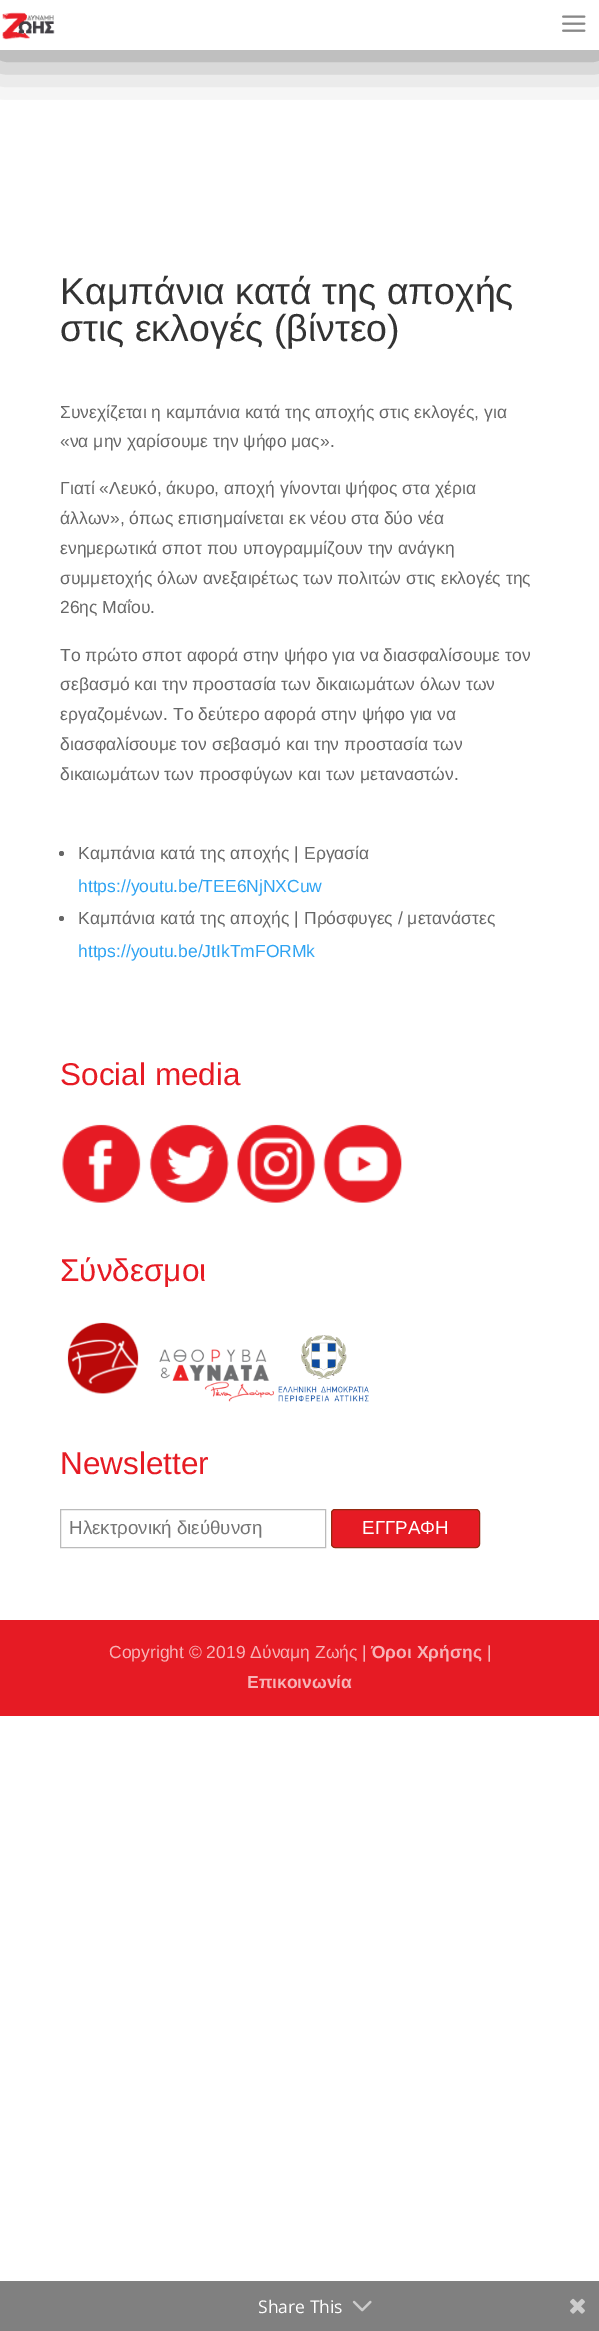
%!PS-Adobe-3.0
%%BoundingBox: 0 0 599 2331
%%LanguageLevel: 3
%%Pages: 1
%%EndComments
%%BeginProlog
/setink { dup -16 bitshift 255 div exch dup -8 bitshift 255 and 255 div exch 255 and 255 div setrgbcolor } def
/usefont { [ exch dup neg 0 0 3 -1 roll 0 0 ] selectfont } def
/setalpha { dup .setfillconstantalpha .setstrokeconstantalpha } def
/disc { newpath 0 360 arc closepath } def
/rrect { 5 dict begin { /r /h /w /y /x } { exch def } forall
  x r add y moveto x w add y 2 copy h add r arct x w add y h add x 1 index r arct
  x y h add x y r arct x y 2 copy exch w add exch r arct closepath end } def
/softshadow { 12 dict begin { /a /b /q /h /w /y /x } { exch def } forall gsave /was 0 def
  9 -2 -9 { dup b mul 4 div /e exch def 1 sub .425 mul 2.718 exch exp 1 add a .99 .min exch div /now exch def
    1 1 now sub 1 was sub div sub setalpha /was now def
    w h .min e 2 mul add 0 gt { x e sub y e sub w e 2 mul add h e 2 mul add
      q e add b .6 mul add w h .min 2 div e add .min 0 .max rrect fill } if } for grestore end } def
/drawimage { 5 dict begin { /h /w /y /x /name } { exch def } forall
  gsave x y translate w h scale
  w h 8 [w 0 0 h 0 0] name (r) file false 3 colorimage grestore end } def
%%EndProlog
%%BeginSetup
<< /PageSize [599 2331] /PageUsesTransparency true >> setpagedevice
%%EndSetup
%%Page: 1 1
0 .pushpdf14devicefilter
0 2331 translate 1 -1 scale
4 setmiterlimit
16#FFFFFF setink
0 0 599 2331 rectfill
gsave
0 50 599 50 rectclip
16#000000 setink
-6 -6 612 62 0 25 0.5 softshadow
grestore
(img1.raw) 2 12 53 28 drawimage
(img2.raw) 562 15 24 17 drawimage
/LiberationSans-Regular 37.5 usefont
16#333333 setink
60 304 moveto (Καμπάνια κατά της αποχής) show
60 341 moveto (στις εκλογές \(βίντεο\)) show
/LiberationSans-Regular 17.5 usefont
16#666666 setink
[
    [(Συνεχίζεται η καμπάνια κατά της αποχής στις εκλογές, για) 60 418]
    [(«να μην χαρίσουμε την ψήφο μας».) 60 447]
    [(Γιατί «Λευκό, άκυρο, αποχή γίνονται ψήφος στα χέρια) 60 494]
    [(άλλων», όπως επισημαίνεται εκ νέου στα δύο νέα) 60 524]
    [(ενημερωτικά σποτ που υπογραμμίζουν την ανάγκη) 60 554]
    [(συμμετοχής όλων ανεξαιρέτως των πολιτών στις εκλογές της) 60 584]
    [(26ης Μαΐου.) 60 613]
    [(Το πρώτο σποτ αφορά στην ψήφο για να διασφαλίσουμε τον) 60 661]
    [(σεβασμό και την προστασία των δικαιωμάτων όλων των) 60 690]
    [(εργαζομένων. Το δεύτερο αφορά στην ψήφο για να) 60 720]
    [(διασφαλίσουμε τον σεβασμό και την προστασία των) 60 750]
    [(δικαιωμάτων των προσφύγων και των μεταναστών.) 60 780]
] { aload pop moveto show } forall
61.5 853.5 2.5 disc fill
78 859 moveto (Καμπάνια κατά της αποχής | Εργασία) show
16#2EA3F2 setink
78 892 moveto (https://youtu.be/TEE6NjNXCuw) show
16#666666 setink
61.5 918.5 2.5 disc fill
78 924 moveto (Καμπάνια κατά της αποχής | Πρόσφυγες / μετανάστες) show
16#2EA3F2 setink
78 957 moveto (https://youtu.be/JtIkTmFORMk) show
/LiberationSans-Regular 31.5 usefont
16#E61B24 setink
60 1085 moveto (Social media) show
(img3.raw) 62 1124 79 79 drawimage
(img4.raw) 149 1124 80 79 drawimage
(img5.raw) 237 1124 79 79 drawimage
(img6.raw) 323 1124 79 79 drawimage
60 1281 moveto (Σύνδεσμοι) show
(img7.raw) 67 1322 72 72 drawimage
(img8.raw) 159 1349 115 53 drawimage
(img9.raw) 278 1335 91 67 drawimage
60 1474 moveto (Newsletter) show
16#BBBBBB setink
60.5 1509.5 265 38 rectstroke
/LiberationSans-Regular 18.75 usefont
16#757575 setink
69 1534 moveto (Ηλεκτρονική διεύθυνση) show
16#E61B24 setink
331.5 1509.5 148 38 3.5 rrect gsave fill grestore
16#942911 setink
stroke
16#FFFFFF setink
362 1534 moveto (ΕΓΓΡΑΦΗ) show
16#E61B24 setink
0 1620 599 96 rectfill
/LiberationSans-Regular 17.5 usefont
16#F7B4B7 setink
109 1658 moveto (Copyright © 2019 Δύναμη Ζωής |) show
/LiberationSans-Bold 17.5 usefont
371 1658 moveto (Όροι Χρήσης) show
/LiberationSans-Regular 17.5 usefont
487 1658 moveto (|) show
/LiberationSans-Bold 17.5 usefont
247 1688 moveto (Επικοινωνία) show
16#808080 setink
0 2281 599 50 rectfill
/OpenSans-Regular 17.5 usefont
16#FFFFFF setink
258 2313 moveto (Share This) show
(img10.raw) 352 2300 20 12 drawimage
(img11.raw) 570 2298 15 16 drawimage
.poppdf14devicefilter showpage
%%EOF
